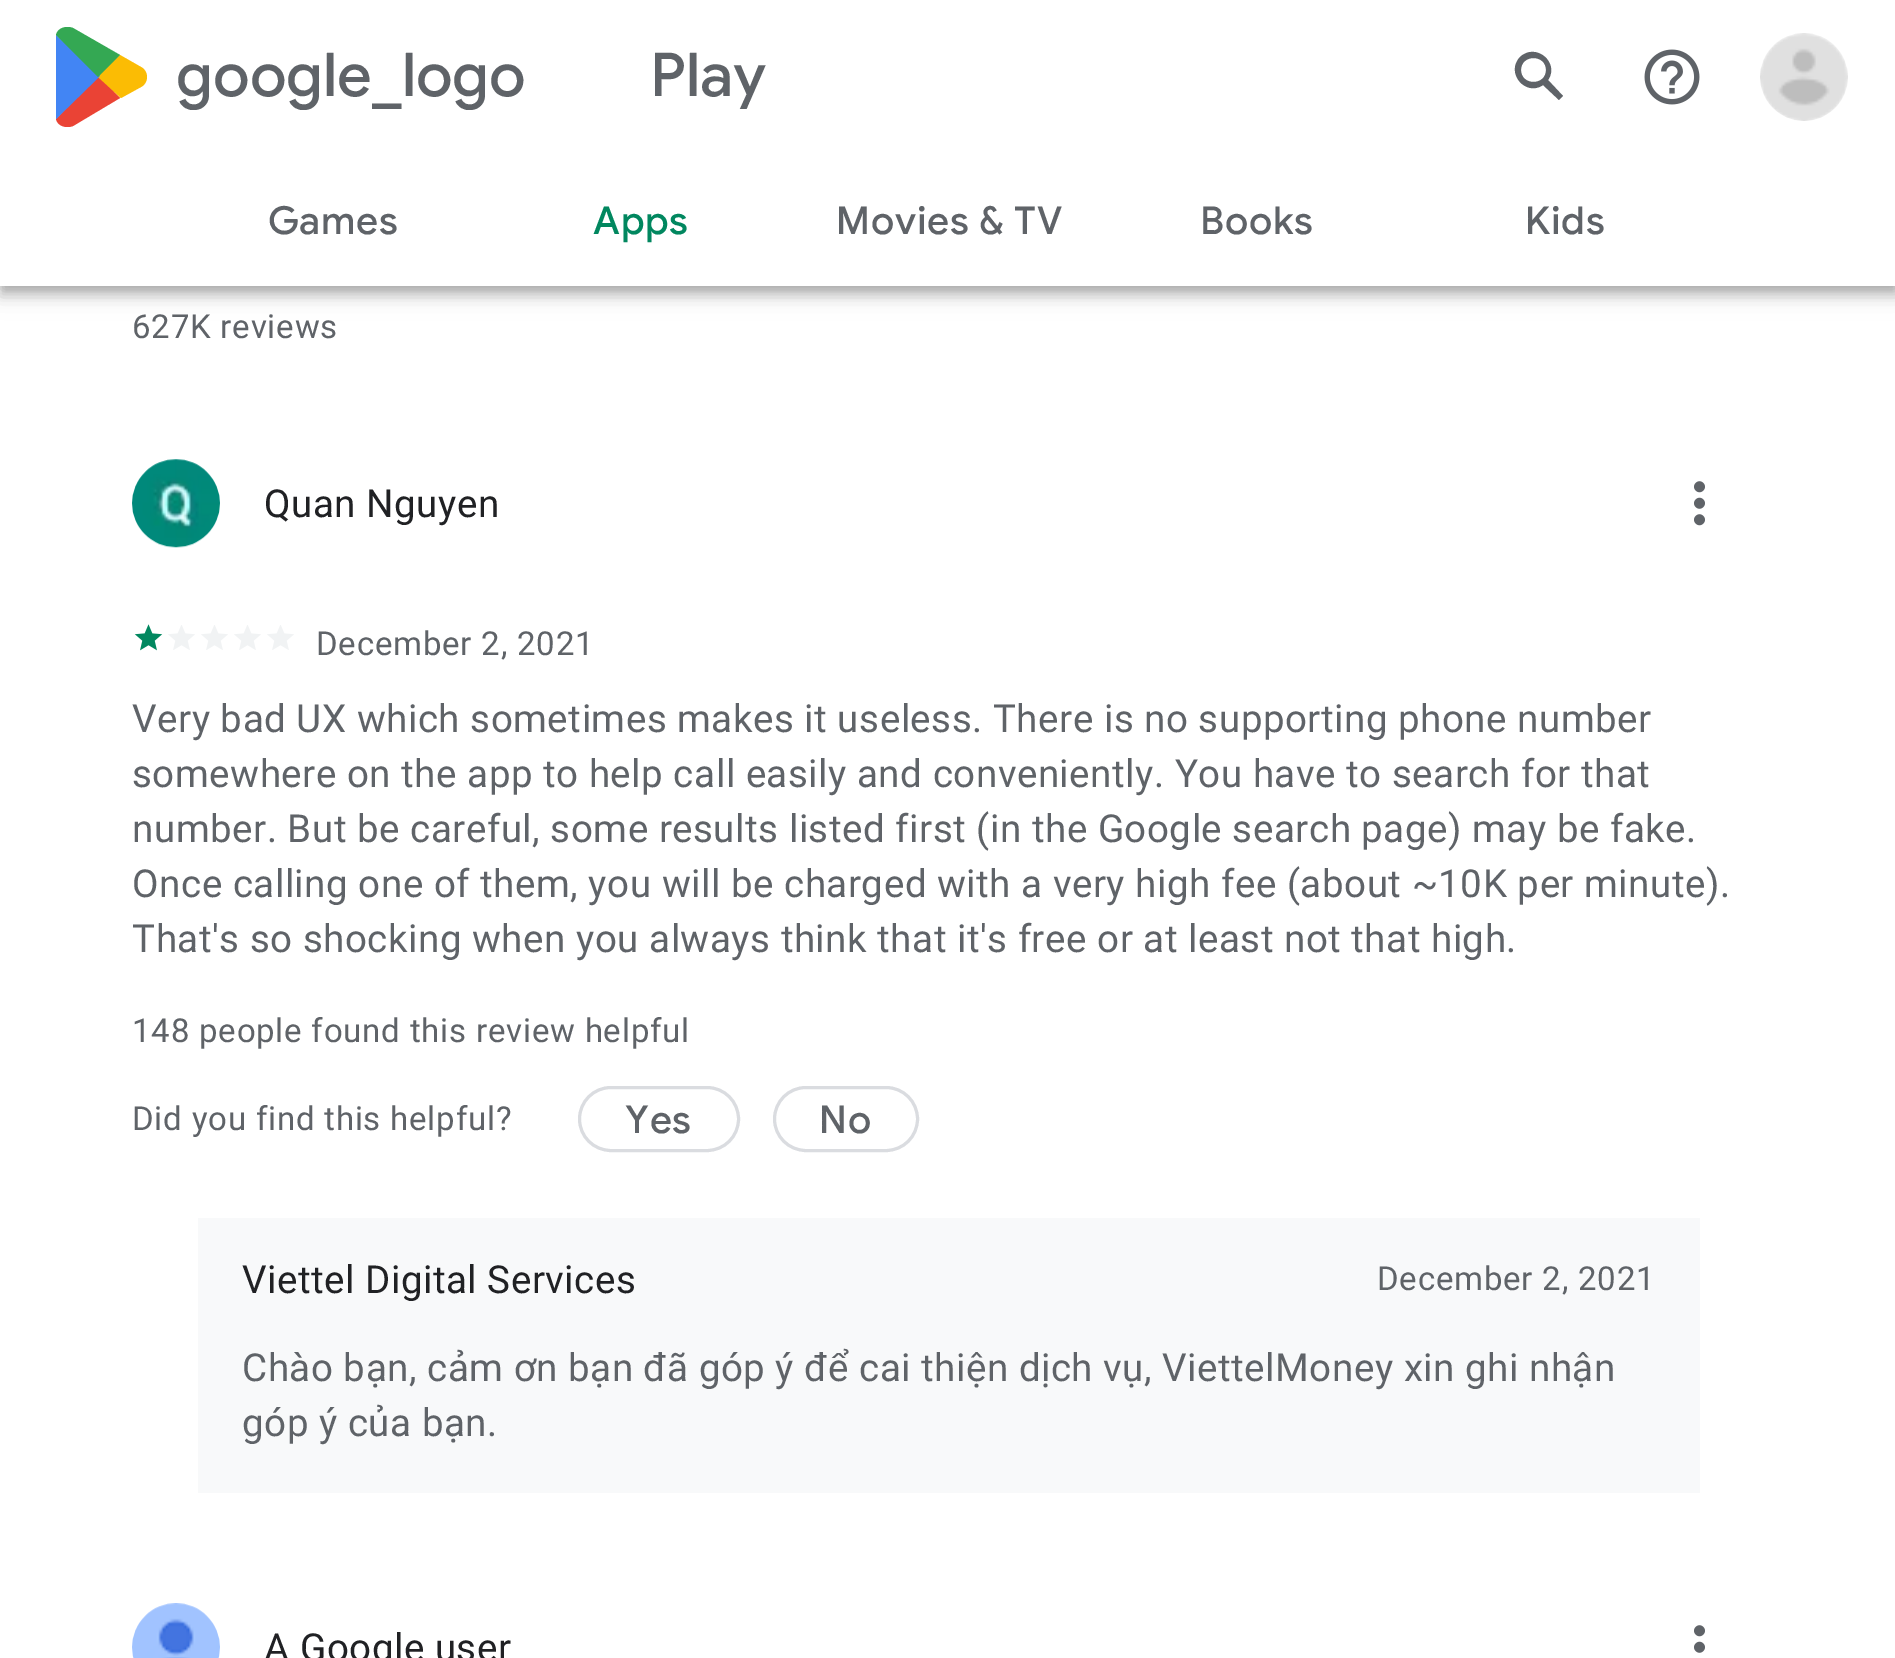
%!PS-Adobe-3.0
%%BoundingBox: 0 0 1895 1658
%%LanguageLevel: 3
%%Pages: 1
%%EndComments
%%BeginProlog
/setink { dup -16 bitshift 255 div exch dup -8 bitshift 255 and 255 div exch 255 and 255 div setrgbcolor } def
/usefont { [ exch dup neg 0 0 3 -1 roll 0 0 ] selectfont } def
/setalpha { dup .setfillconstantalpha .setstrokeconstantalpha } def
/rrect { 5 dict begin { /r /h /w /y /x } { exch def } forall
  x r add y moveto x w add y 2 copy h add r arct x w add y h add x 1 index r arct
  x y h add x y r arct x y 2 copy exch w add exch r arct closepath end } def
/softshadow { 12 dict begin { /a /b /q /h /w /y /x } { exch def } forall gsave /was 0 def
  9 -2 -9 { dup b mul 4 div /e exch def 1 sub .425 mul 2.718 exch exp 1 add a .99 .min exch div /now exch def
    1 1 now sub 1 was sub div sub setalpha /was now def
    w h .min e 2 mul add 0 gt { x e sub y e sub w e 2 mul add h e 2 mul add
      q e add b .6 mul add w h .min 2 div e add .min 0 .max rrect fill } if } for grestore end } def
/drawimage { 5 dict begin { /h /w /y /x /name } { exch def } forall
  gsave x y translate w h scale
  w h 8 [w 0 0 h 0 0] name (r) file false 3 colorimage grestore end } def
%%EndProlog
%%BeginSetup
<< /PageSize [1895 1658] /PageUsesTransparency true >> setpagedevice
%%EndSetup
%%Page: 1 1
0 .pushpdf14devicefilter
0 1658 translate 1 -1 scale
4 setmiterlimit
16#FFFFFF setink
0 0 1895 1658 rectfill
16#000000 setink
3 8 1892 281 0 5.5 0.2 softshadow
0 3 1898 286 0 14 0.12 softshadow
0 11 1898 286 0 7 0.14 softshadow
16#FFFFFF setink
0 0 1895 286 rectfill
16#EA4335 setink
98 75 moveto 56 119 lineto 57 124 62 127 67 127 curveto 69 127 71 127 73 126 curveto 120 98 lineto closepath fill
16#FBBC04 setink
141 67 moveto 120 55 lineto 97 76 lineto 121 98 lineto 141 87 lineto 145 85 147 81 147 77 curveto 147 73 145 69 141 67 curveto closepath fill
16#4285F4 setink
56 35 moveto 56 119 lineto 100 76 lineto closepath fill
16#34A853 setink
98 77 moveto 120 55 lineto 73 28 lineto 71 27 69 27 67 27 curveto 62 27 57 30 56 35 curveto closepath fill
/GoogleSans-Medium 60.5 usefont
16#5F6368 setink
176 96 moveto 151 0 32 (google_logo) widthshow
650 96 moveto 151 0 32 (Play) widthshow
1563 96 moveto 1548 80 lineto 1560 63 1536 42 1520 57 curveto 1505 73 1526 97 1543 85 curveto 1559 100 lineto closepath 1521 70 moveto 1521 54 1546 54 1546 70 curveto 1546 86 1521 86 1521 70 curveto closepath fill
(img1.raw) 1644 49 56 56 drawimage
(img2.raw) 1760 33 88 88 drawimage
/GoogleSans-Medium 38.5 usefont
268 234 moveto 0.75 0 (Games) ashow
16#01875F setink
593 234 moveto 0.75 0 (Apps) ashow
16#5F6368 setink
836 234 moveto 0.75 0 (Movies & TV) ashow
1200 234 moveto 0.75 0 (Books) ashow
1525 234 moveto 0.75 0 (Kids) ashow
/Roboto-Regular 33 usefont
132 338 moveto 0.8 0 (627K reviews) ashow
(img3.raw) 132 459 88 89 drawimage
/Roboto-Regular 38.5 usefont
16#202124 setink
264 517 moveto 0.55 0 (Quan Nguyen) ashow
(img4.raw) 1694 481 11 45 drawimage
(img5.raw) 134 624 29 27 drawimage
(img6.raw) 168 625 27 25 drawimage
(img6.raw) 201 625 27 25 drawimage
(img6.raw) 234 625 27 25 drawimage
(img6.raw) 267 625 27 25 drawimage
/Roboto-Regular 33 usefont
16#5F6368 setink
316 655 moveto 0.8 0 (December 2, 2021) ashow
/Roboto-Regular 38.5 usefont
132 732 moveto 0.55 0 (Very bad UX which sometimes makes it useless. There is no supporting phone number) ashow
132 787 moveto 0.55 0 (somewhere on the app to help call easily and conveniently. You have to search for that) ashow
132 842 moveto 0.55 0 (number. But be careful, some results listed first \(in the Google search page\) may be fake.) ashow
132 897 moveto 0.55 0 (Once calling one of them, you will be charged with a very high fee \(about ~10K per minute\).) ashow
132 952 moveto 0.55 0 (That's so shocking when you always think that it's free or at least not that high.) ashow
/Roboto-Regular 33 usefont
132 1042 moveto 0.8 0 (148 people found this review helpful) ashow
132 1130 moveto 0.8 0 (Did you find this helpful?) ashow
16#DADCE0 setink
3 setlinewidth
579.5 1087.5 159 63 31.5 rrect stroke
/GoogleSans-Medium 38.5 usefont
16#5F6368 setink
625 1133 moveto 0.75 0 (Yes) ashow
16#DADCE0 setink
774.5 1087.5 143 63 31.5 rrect stroke
16#5F6368 setink
819 1133 moveto 0.75 0 (No) ashow
16#F8F9FA setink
198 1218 1502 275 rectfill
/Roboto-Regular 38.5 usefont
16#202124 setink
242 1293 moveto 0.55 0 (Viettel Digital Services) ashow
/Roboto-Regular 33 usefont
16#5F6368 setink
1377 1290 moveto 0.8 0 (December 2, 2021) ashow
/Roboto-Regular 38.5 usefont
242 1381 moveto 0.55 0 (Chào bạn, cảm ơn bạn đã góp ý để cai thiện dịch vụ, ViettelMoney xin ghi nhận) ashow
242 1436 moveto 0.55 0 (góp ý của bạn.) ashow
(img7.raw) 132 1603 88 55 drawimage
16#202124 setink
264 1661 moveto 0.55 0 (A Google user) ashow
(img8.raw) 1694 1625 11 28 drawimage
.poppdf14devicefilter showpage
%%EOF
